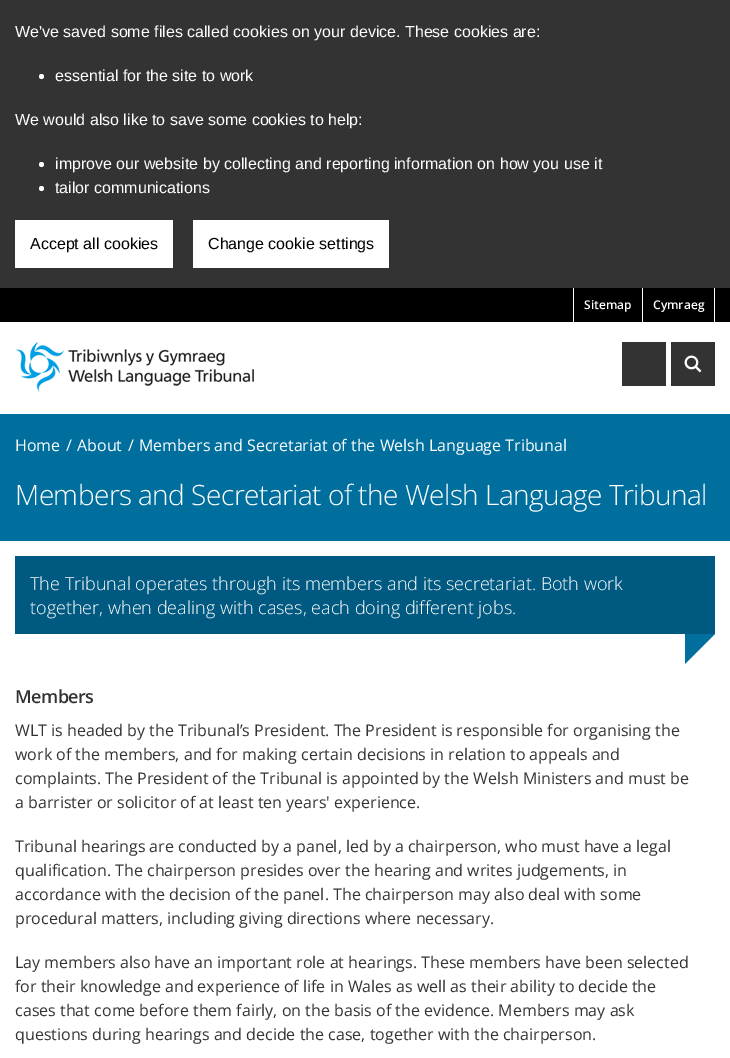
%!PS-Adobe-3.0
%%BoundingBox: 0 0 730 1058
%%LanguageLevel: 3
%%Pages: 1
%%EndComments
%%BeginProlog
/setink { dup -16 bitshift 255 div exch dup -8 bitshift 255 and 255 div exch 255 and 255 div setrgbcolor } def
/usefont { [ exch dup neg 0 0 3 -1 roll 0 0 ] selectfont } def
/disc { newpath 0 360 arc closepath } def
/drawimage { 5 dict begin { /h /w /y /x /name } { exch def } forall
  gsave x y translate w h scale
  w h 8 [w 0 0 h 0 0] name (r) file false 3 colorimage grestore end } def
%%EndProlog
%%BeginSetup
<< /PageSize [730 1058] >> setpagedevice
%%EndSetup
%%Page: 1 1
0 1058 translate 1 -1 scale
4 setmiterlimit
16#FFFFFF setink
0 0 730 1058 rectfill
16#333333 setink
0 0 730 288 rectfill
/LiberationSans-Regular 16 usefont
16#FFFFFF setink
15 37 moveto (We've saved some files called cookies on your device. These cookies are:) show
41.5 76.5 2.5 disc fill
55 81 moveto (essential for the site to work) show
15 125 moveto (We would also like to save some cookies to help:) show
41.5 164.5 2.5 disc fill
55 169 moveto (improve our website by collecting and reporting information on how you use it) show
41.5 188.5 2.5 disc fill
55 193 moveto (tailor communications) show
15 220 158 48 rectfill
16#000000 setink
30 249 moveto (Accept all cookies) show
16#FFFFFF setink
193 220 196 48 rectfill
16#000000 setink
208 249 moveto (Change cookie settings) show
0 288 730 34 rectfill
16#FFFFFF setink
573 288 1 34 rectfill
/OpenSans-SemiBold 12 usefont
584 309 moveto (Sitemap) show
714 288 1 34 rectfill
642 288 1 34 rectfill
653 309 moveto (Cymraeg) show
(img1.raw) 15 342 239 50 drawimage
16#333333 setink
622 342 44 44 rectfill
671 342 44 44 rectfill
(img2.raw) 684 355 18 18 drawimage
16#006F9E setink
0 414 730 127 rectfill
/OpenSans-Regular 16 usefont
16#FFFFFF setink
[
    [(Home) 15 451]
    [(/) 66 451]
    [(About) 77 451]
    [(/) 128 451]
    [(Members and Secretariat of the Welsh Language Tribunal) 139 451]
] { aload pop moveto show } forall
/OpenSans-Light 28 usefont
15 505 moveto -0.55 0 (Members and Secretariat of the Welsh Language Tribunal) ashow
16#005980 setink
15 556 700 78 rectfill
/OpenSans-Light 18 usefont
16#FFFFFF setink
30 590 moveto (The Tribunal operates through its members and its secretariat. Both work) show
30 614 moveto (together, when dealing with cases, each doing different jobs.) show
16#006F9E setink
685 664 moveto 685 634 lineto 715 634 lineto closepath fill
/OpenSans-SemiBold 18 usefont
16#333333 setink
15 703 moveto -0.5 0 (Members) ashow
/OpenSans-Regular 16 usefont
[
    [(WLT is headed by the Tribunal’s President. The President is responsible for organising the) 15 736]
    [(work of the members, and for making certain decisions in relation to appeals and) 15 760]
    [(complaints. The President of the Tribunal is appointed by the Welsh Ministers and must be) 15 784]
    [(a barrister or solicitor of at least ten years' experience.) 15 808]
    [(Tribunal hearings are conducted by a panel, led by a chairperson, who must have a legal) 15 852]
    [(qualification. The chairperson presides over the hearing and writes judgements, in) 15 876]
    [(accordance with the decision of the panel. The chairperson may also deal with some) 15 900]
    [(procedural matters, including giving directions where necessary.) 15 924]
    [(Lay members also have an important role at hearings. These members have been selected) 15 968]
    [(for their knowledge and experience of life in Wales as well as their ability to decide the) 15 992]
    [(cases that come before them fairly, on the basis of the evidence. Members may ask) 15 1016]
    [(questions during hearings and decide the case, together with the chairperson.) 15 1040]
] { aload pop moveto show } forall
showpage
%%EOF
